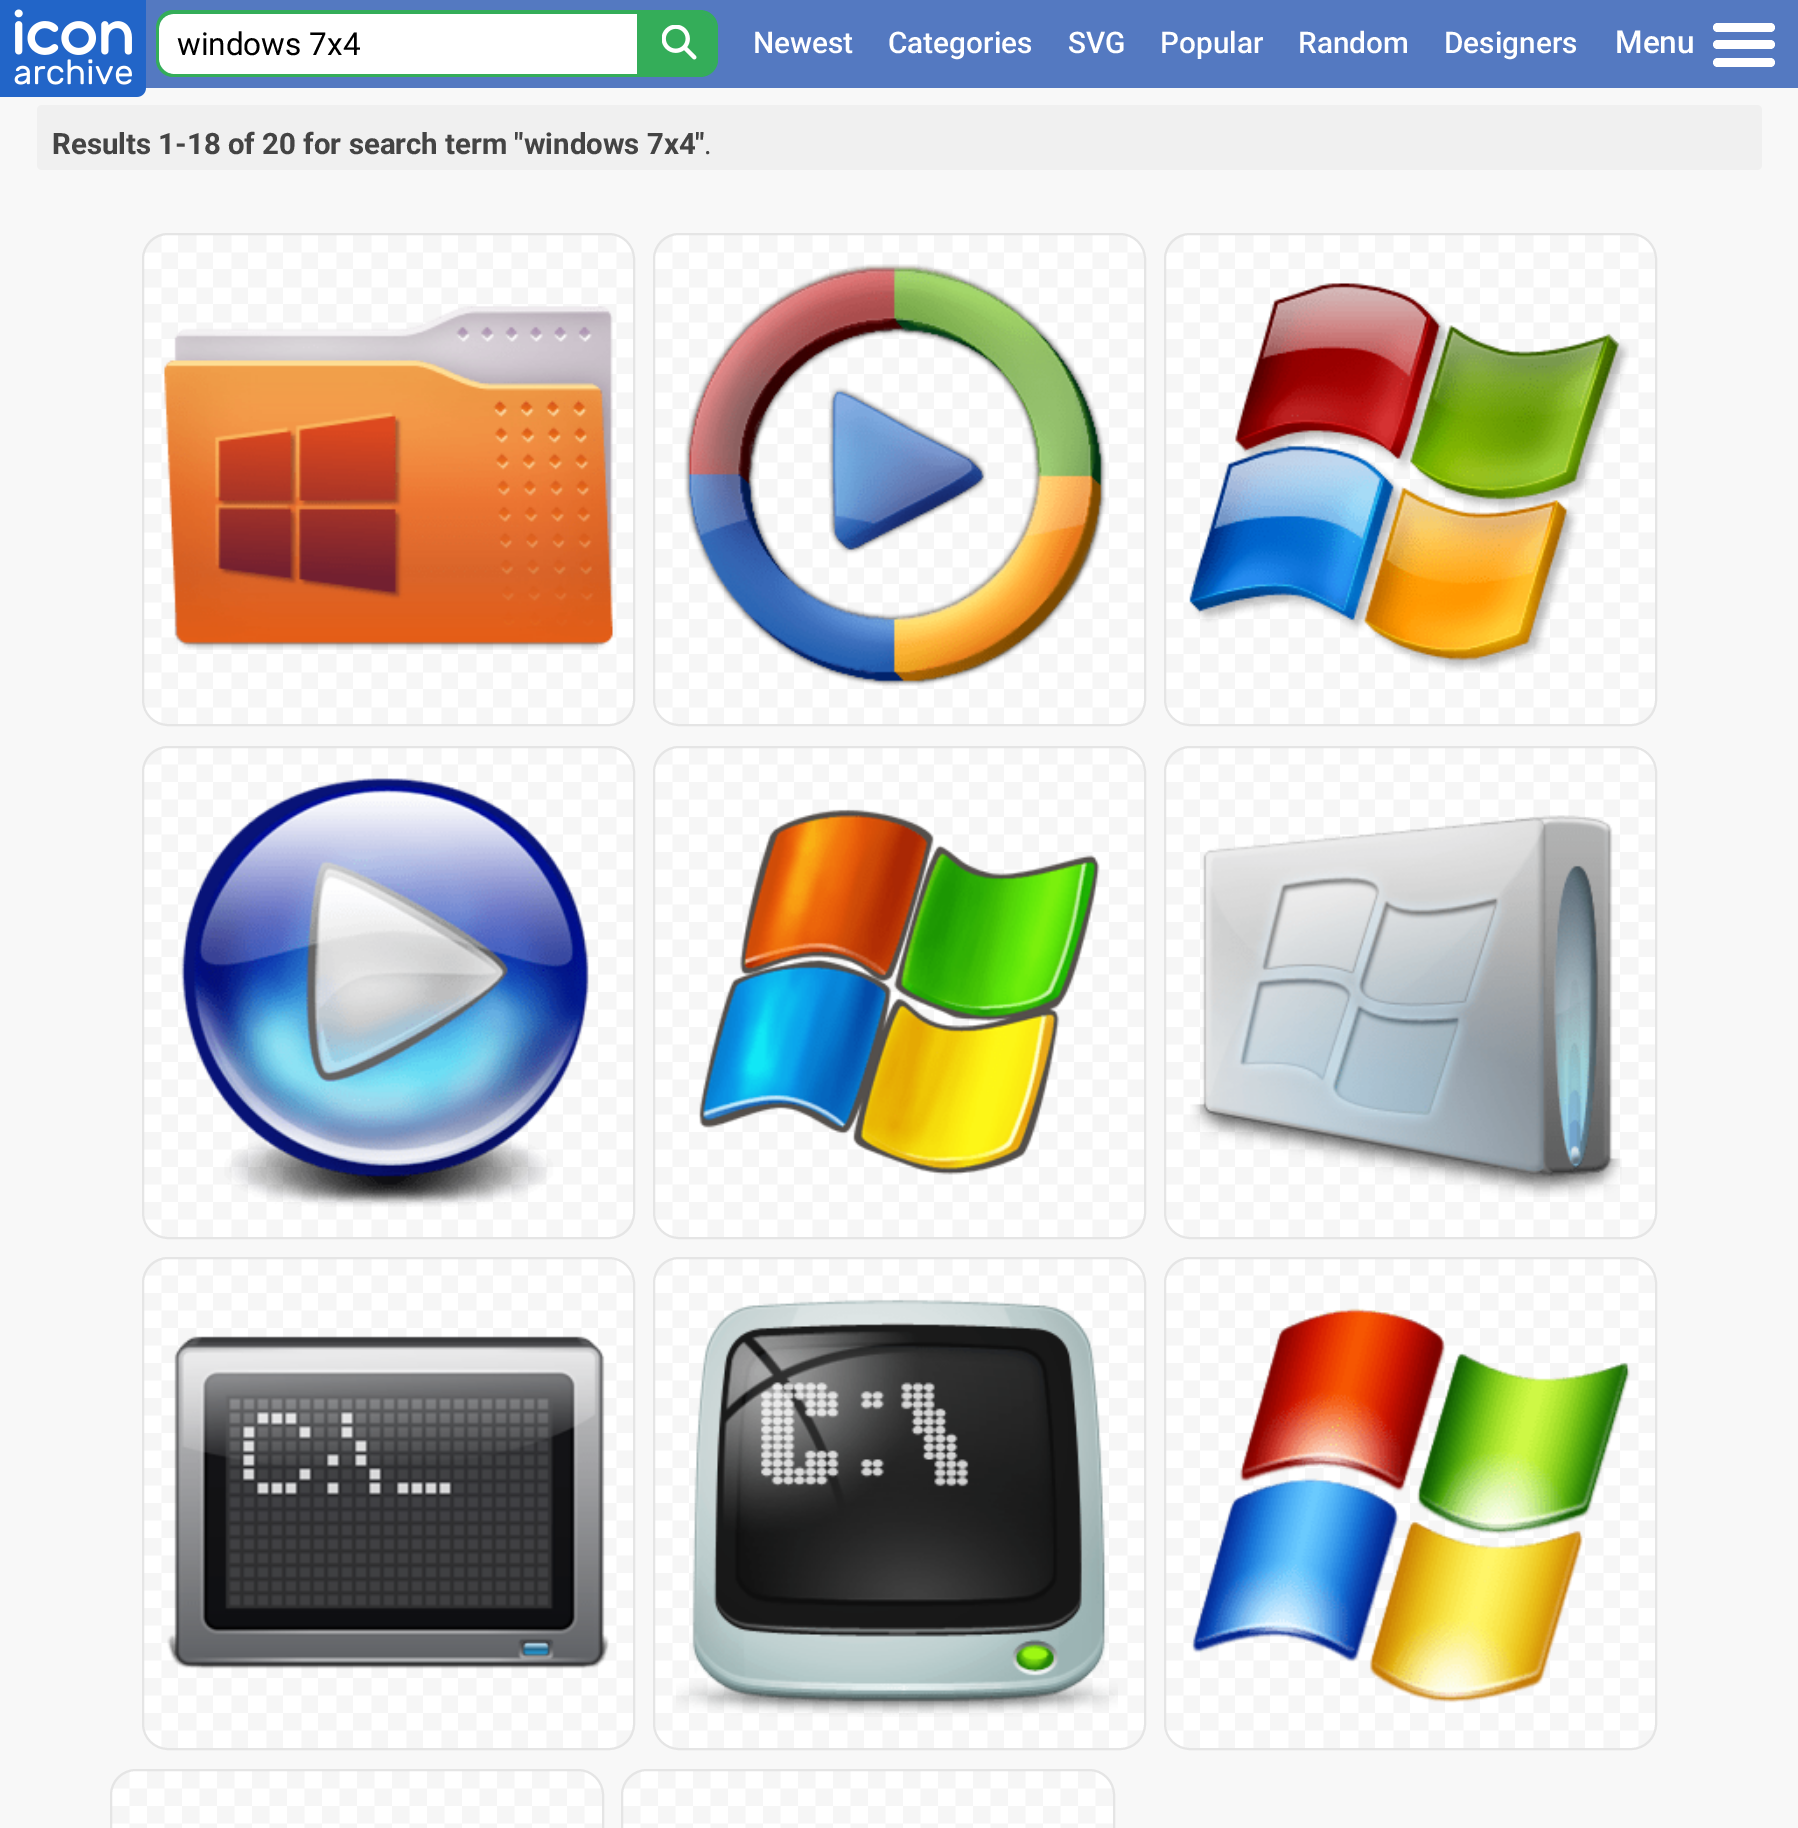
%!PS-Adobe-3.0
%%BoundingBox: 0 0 1798 1828
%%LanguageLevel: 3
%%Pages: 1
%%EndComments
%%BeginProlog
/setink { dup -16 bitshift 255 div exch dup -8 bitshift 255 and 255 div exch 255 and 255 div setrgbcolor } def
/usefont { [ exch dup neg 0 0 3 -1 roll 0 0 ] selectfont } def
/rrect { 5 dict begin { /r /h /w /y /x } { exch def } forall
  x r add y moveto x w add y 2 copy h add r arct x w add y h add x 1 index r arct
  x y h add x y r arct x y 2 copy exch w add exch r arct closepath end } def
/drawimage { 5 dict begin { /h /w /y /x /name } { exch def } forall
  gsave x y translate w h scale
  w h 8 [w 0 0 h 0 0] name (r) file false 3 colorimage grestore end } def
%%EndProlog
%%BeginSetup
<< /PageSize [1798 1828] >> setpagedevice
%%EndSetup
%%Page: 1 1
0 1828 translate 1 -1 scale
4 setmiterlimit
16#F8F8F8 setink
0 0 1798 1828 rectfill
16#5479C1 setink
146 0 1652 88 rectfill
(img1.raw) 0 0 146 97 drawimage
16#FFFFFF setink
173 14 moveto 637 14 lineto 637 74 lineto 173 74 lineto 165.5 74 159 67.5 159 60 curveto 159 28 lineto 159 20.5 165.5 14 173 14 curveto closepath fill
16#34AD59 setink
173 10 moveto 637 10 lineto 637 77 lineto 173 77 lineto 164 77 156 69 156 60 curveto 156 28 lineto 156 18 164 10 173 10 curveto closepath 173 14 moveto 637 14 lineto 637 74 lineto 173 74 lineto 166 74 159 67 159 60 curveto 159 28 lineto 159 20 166 14 173 14 curveto closepath eofill
/Roboto-Regular 31.5 usefont
16#000000 setink
177 55 moveto (windows 7x4) show
16#34AD59 setink
637 14 moveto 700 14 lineto 707.5 14 714 20.5 714 28 curveto 714 60 lineto 714 67.5 707.5 74 700 74 curveto 637 74 lineto closepath fill
637 10 moveto 700 10 lineto 710 10 718 18 718 28 curveto 718 60 lineto 718 69 710 77 700 77 curveto 637 77 lineto closepath 637 14 moveto 700 14 lineto 708 14 714 20 714 28 curveto 714 60 lineto 714 67 708 74 700 74 curveto 637 74 lineto closepath eofill
(img2.raw) 662 25 35 35 drawimage
/Roboto-Medium 29.75 usefont
16#FFFFFF setink
[
    [(Newest) 753 53]
    [(Categories) 888 53]
    [(SVG) 1068 53]
    [(Popular) 1160 53]
    [(Random) 1298 53]
    [(Designers) 1444 53]
] { aload pop moveto show } forall
/Roboto-Medium 31.5 usefont
1615 53 moveto (Menu) show
1713 23 62 9 4.5 rrect fill
1713 40 62 9 4.5 rrect fill
1713 58 62 9 4.5 rrect fill
16#F0F0F0 setink
37 105 1725 65 5 rrect fill
/Roboto-Bold 29.4 usefont
16#444444 setink
52 154 moveto (Results 1-18 of 20 for search term "windows 7x4") show
/Roboto-Regular 29.4 usefont
704 154 moveto (.) show
(img3.raw) 142 233 493 493 drawimage
16#E5E5E5 setink
2 setlinewidth
143 234 491 491 25 rrect stroke
(img4.raw) 164 306 449 344 drawimage
(img3.raw) 653 233 493 493 drawimage
654 234 491 491 25 rrect stroke
(img5.raw) 684 264 422 422 drawimage
(img3.raw) 1164 233 493 493 drawimage
1165 234 491 491 25 rrect stroke
(img6.raw) 1189 283 440 388 drawimage
(img7.raw) 142 746 493 493 drawimage
143 747 491 491 25 rrect stroke
(img8.raw) 181 778 408 429 drawimage
(img7.raw) 653 746 493 493 drawimage
654 747 491 491 25 rrect stroke
(img9.raw) 698 809 402 366 drawimage
(img7.raw) 1164 746 493 493 drawimage
1165 747 491 491 25 rrect stroke
(img10.raw) 1190 815 432 382 drawimage
(img11.raw) 142 1257 493 493 drawimage
143 1258 491 491 25 rrect stroke
(img12.raw) 167 1336 442 333 drawimage
(img11.raw) 653 1257 493 493 drawimage
654 1258 491 491 25 rrect stroke
(img13.raw) 676 1299 442 418 drawimage
(img11.raw) 1164 1257 493 493 drawimage
1165 1258 491 491 25 rrect stroke
(img14.raw) 1191 1308 439 395 drawimage
(img15.raw) 111 1770 492 58 drawimage
111 1770 492 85 25 rrect stroke
(img15.raw) 622 1770 492 58 drawimage
622 1770 492 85 25 rrect stroke
showpage
%%EOF
